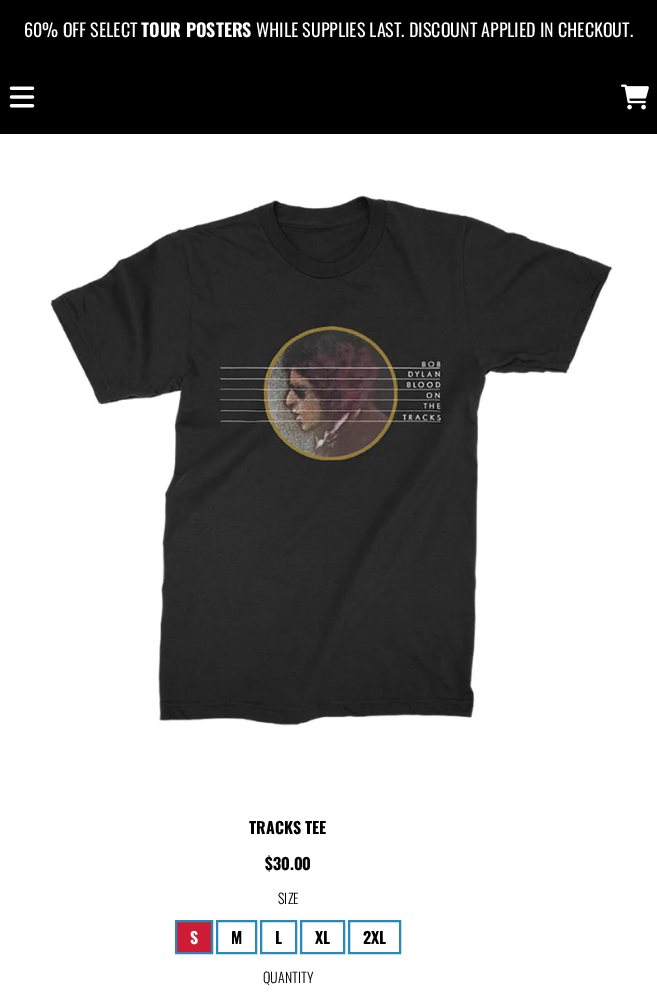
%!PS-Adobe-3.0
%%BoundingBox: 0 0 657 995
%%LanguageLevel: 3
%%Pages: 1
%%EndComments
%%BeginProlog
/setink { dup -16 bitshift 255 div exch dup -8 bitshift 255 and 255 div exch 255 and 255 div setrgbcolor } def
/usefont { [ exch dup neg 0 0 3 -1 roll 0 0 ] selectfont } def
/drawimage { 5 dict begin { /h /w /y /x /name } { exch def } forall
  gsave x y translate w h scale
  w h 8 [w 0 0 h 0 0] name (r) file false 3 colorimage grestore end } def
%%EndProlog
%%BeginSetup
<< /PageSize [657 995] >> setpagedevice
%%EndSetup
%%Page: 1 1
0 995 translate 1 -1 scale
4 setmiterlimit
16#000000 setink
0 0 657 995 rectfill
/Oswald-Regular 18 usefont
16#FFFFFF setink
24 37 moveto (60% OFF SELECT) show
/Oswald-Bold 18 usefont
141 37 moveto (TOUR POSTERS) show
/Oswald-Regular 18 usefont
256 37 moveto (WHILE SUPPLIES LAST. DISCOUNT APPLIED IN CHECKOUT.) show
(img1.raw) 9 86 26 22 drawimage
(img2.raw) 621 84 28 26 drawimage
0 134 657 861 rectfill
(img3.raw) 50 195 563 531 drawimage
/Oswald-Bold 16 usefont
16#000000 setink
249 834 moveto (TRACKS TEE) show
265 870 moveto ($30.00) show
/Oswald-Light 14 usefont
278 904 moveto (SIZE) show
16#CE1C37 setink
176 921 moveto 212 921 lineto 212 953 lineto 176 953 lineto closepath gsave fill grestore
16#2689BA setink
2 setlinewidth
stroke
/Oswald-Bold 16 usefont
16#FFFFFF setink
190 944 moveto (S) show
16#2689BA setink
217 921 39 32 rectstroke
16#000000 setink
231 944 moveto (M) show
16#2689BA setink
261 921 35 32 rectstroke
16#000000 setink
275 944 moveto (L) show
16#2689BA setink
301 921 43 32 rectstroke
16#000000 setink
315 944 moveto (XL) show
16#2689BA setink
349 921 51 32 rectstroke
16#000000 setink
363 944 moveto (2XL) show
/Oswald-Light 14 usefont
263 983 moveto (QUANTITY) show
showpage
%%EOF
